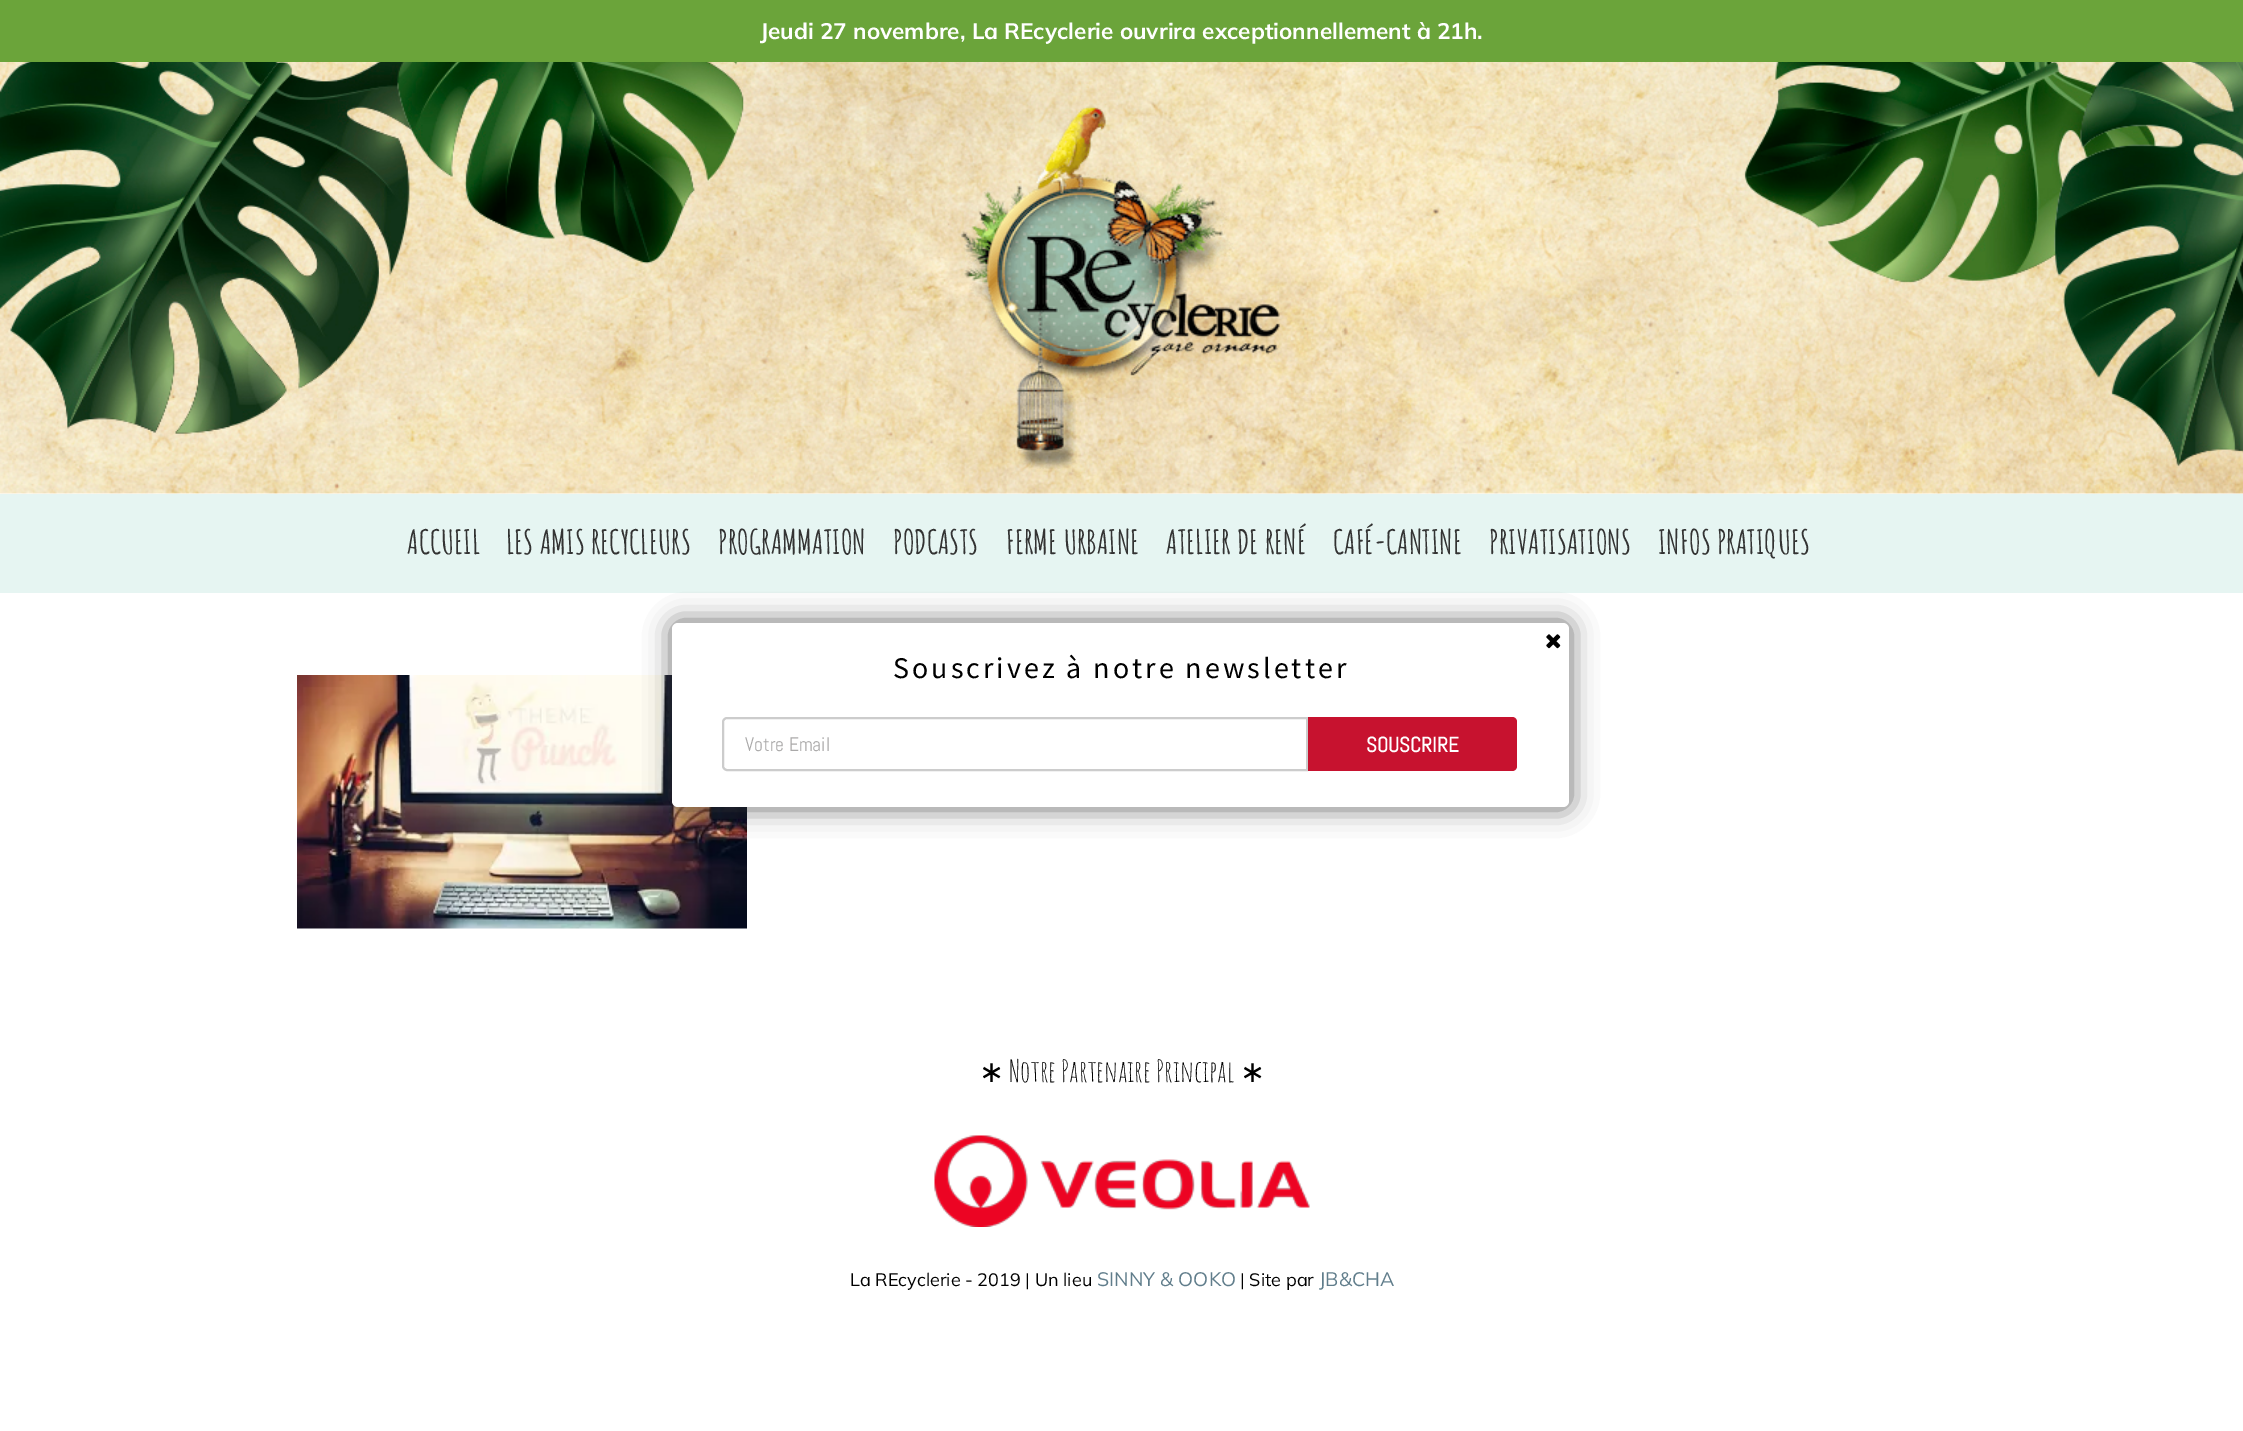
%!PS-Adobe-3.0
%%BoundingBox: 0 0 2243 1431
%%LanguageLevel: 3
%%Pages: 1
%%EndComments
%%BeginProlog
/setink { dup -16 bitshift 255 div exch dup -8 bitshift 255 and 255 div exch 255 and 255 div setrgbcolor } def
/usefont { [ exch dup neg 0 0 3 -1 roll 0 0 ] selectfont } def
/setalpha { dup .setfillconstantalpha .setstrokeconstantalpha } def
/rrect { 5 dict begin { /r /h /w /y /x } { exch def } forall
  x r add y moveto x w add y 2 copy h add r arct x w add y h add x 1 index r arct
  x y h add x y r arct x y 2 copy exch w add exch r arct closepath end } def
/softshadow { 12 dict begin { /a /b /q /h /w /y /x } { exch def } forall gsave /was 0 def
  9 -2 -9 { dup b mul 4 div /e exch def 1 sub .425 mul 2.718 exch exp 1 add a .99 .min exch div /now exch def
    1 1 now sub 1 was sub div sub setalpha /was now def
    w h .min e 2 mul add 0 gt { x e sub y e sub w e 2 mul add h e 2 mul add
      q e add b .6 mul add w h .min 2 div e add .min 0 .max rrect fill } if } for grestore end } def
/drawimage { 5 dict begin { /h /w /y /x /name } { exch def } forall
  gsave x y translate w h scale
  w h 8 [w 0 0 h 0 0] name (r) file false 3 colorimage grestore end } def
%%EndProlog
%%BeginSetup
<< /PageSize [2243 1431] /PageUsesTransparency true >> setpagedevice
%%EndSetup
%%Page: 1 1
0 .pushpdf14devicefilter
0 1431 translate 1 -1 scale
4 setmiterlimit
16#FFFFFF setink
0 0 2243 1431 rectfill
16#6BA43A setink
0 0 2243 62 rectfill
/Mulish-Bold 22.5 usefont
16#FFFFFF setink
760 39 moveto (Jeudi 27 novembre, La REcyclerie ouvrira exceptionnellement à 21h.) show
(img1.raw) 0 62 2243 432 drawimage
(img2.raw) 960 106 320 363 drawimage
16#E6F5F2 setink
0 494 2243 99 rectfill
/AmaticSC-Bold 33 usefont
16#333333 setink
[
    [(ACCUEIL) 407 554]
    [(LES AMIS RECYCLEURS) 506 554]
    [(PROGRAMMATION) 718 554]
    [(PODCASTS) 893 554]
    [(FERME URBAINE) 1006 554]
    [(ATELIER DE RENÉ) 1166 554]
    [(CAFÉ-CANTINE) 1333 554]
    [(PRIVATISATIONS) 1489 554]
    [(INFOS PRATIQUES) 1658 554]
] { aload pop moveto show } forall
(img3.raw) 297 675 450 254 drawimage
/DejaVuSans-Regular 30 usefont
16#000000 setink
979 1082 moveto (∗) show
/AmaticSC-Regular 30 usefont
1009 1082 moveto (Notre Partenaire Principal) show
/DejaVuSans-Regular 30 usefont
1240 1082 moveto (∗) show
(img4.raw) 934 1135 376 92 drawimage
/Mulish-Regular 18 usefont
850 1286 moveto (La REcyclerie - 2019 | Un lieu) show
/Mulish-Regular 19.5 usefont
16#607D8B setink
1097 1286 moveto (SINNY & OOKO) show
/Mulish-Regular 18 usefont
16#000000 setink
1240 1286 moveto (| Site par) show
/Mulish-Regular 19.5 usefont
16#607D8B setink
1319 1286 moveto (JB&CHA) show
16#323232 setink
671 621 900 188 8 13 0.69 softshadow
16#FFFFFF setink
672 623 897 184 6 rrect fill
(img5.raw) 1546 634 15 15 drawimage
/SourceSansPro-Regular 30 usefont
16#000000 setink
893 678 moveto 3 0 (Souscrivez à notre newsletter) ashow
16#CCCCCC setink
2 setlinewidth
727 718 moveto 1307 718 lineto 1307 770 lineto 727 770 lineto 725 770 723 768 723 766 curveto 723 722 lineto 723 720 725 718 727 718 curveto closepath stroke
/Abel-Regular 19.5 usefont
16#AAA9A9 setink
745 751 moveto (Votre Email) show
16#C7122F setink
1308 717 moveto 1512 717 lineto 1515 717 1517 719 1517 722 curveto 1517 766 lineto 1517 769 1515 771 1512 771 curveto 1308 771 lineto closepath fill
/Abel-Bold 21 usefont
16#FFFFFF setink
1366 752 moveto (SOUSCRIRE) show
.poppdf14devicefilter showpage
%%EOF
